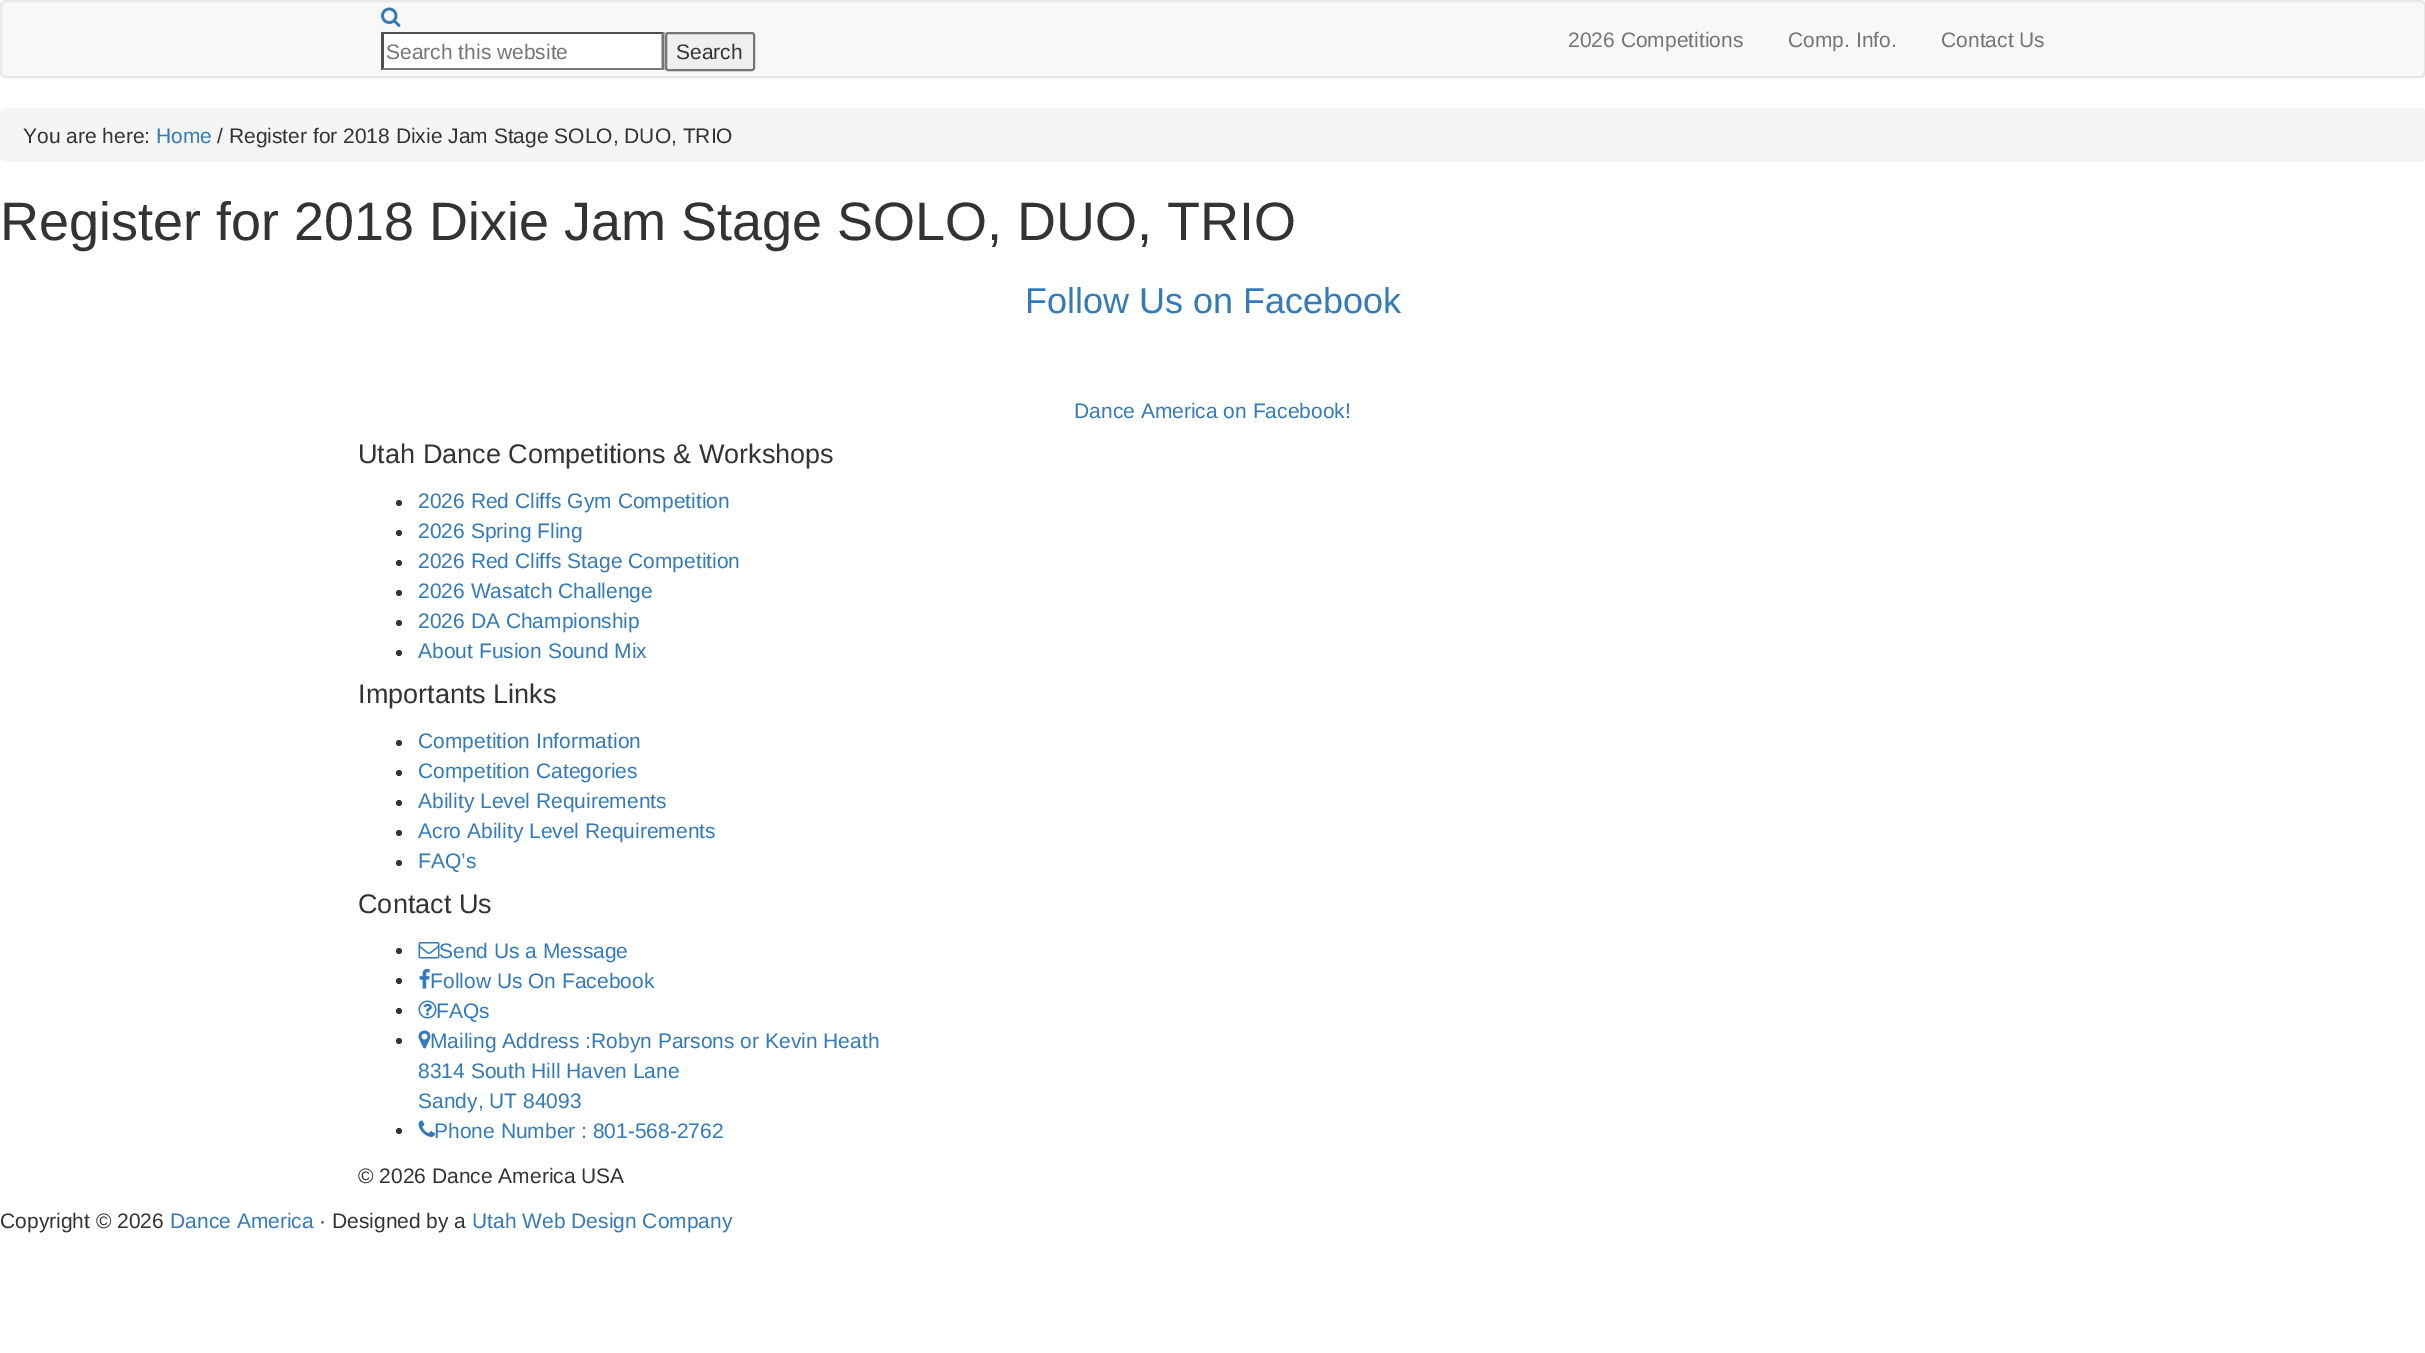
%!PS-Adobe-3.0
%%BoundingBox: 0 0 2425 1353
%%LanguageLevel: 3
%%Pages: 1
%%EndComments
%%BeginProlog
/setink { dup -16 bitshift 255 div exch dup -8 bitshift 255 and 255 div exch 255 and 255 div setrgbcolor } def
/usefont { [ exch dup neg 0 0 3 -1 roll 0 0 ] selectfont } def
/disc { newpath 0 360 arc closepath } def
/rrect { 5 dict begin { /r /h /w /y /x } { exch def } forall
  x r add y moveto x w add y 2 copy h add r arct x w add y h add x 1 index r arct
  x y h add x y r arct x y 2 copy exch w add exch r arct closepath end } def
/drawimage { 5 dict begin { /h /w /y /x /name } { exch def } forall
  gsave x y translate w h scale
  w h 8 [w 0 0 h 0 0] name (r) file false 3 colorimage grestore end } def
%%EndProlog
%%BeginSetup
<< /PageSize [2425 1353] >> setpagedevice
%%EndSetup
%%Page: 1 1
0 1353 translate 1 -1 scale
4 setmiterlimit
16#FFFFFF setink
0 0 2425 1353 rectfill
16#F8F8F8 setink
1 1 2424 76 5 rrect gsave fill grestore
16#E7E7E7 setink
2 setlinewidth
stroke
(img1.raw) 381 7 20 20 drawimage
16#FFFFFF setink
381 32 284 39 rectfill
16#4F4F4F setink
381 32 moveto 664 32 lineto 662 34 lineto 384 34 lineto closepath fill
16#767676 setink
664.5 31.5 moveto 664.5 70.5 lineto 661.5 67.5 lineto 661.5 34.5 lineto closepath fill
664 70 moveto 381 70 lineto 384 68 lineto 662 68 lineto closepath fill
16#4F4F4F setink
381 70.5 moveto 381 31.5 lineto 384 34.5 lineto 384 67.5 lineto closepath fill
/LiberationSans-Regular 21 usefont
16#757575 setink
386 59 moveto (Search this website) show
16#EFEFEF setink
666 33 88 37 2 rrect gsave fill grestore
16#767676 setink
stroke
16#333333 setink
676 59 moveto (Search) show
16#757575 setink
[
    [(2026 Competitions) 1568 47]
    [(Comp. Info.) 1788 47]
    [(Contact Us) 1941 47]
] { aload pop moveto show } forall
16#F5F5F5 setink
0 108 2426 54 6 rrect fill
16#333333 setink
23 143 moveto (You are here:) show
16#337AB7 setink
156 143 moveto (Home) show
16#333333 setink
217 143 moveto (/ Register for 2018 Dixie Jam Stage SOLO, DUO, TRIO) show
/LiberationSans-Regular 54 usefont
0 240 moveto (Register for 2018 Dixie Jam Stage SOLO, DUO, TRIO) show
/LiberationSans-Regular 36 usefont
16#337AB7 setink
1025 313 moveto (Follow Us on Facebook) show
/LiberationSans-Regular 21 usefont
1074 418 moveto (Dance America on Facebook!) show
/LiberationSans-Regular 27 usefont
16#333333 setink
358 463 moveto (Utah Dance Competitions & Workshops) show
399 503 3 disc fill
/LiberationSans-Regular 21 usefont
16#337AB7 setink
418 508 moveto (2026 Red Cliffs Gym Competition) show
16#333333 setink
399 533 3 disc fill
16#337AB7 setink
418 538 moveto (2026 Spring Fling) show
16#333333 setink
399 563 3 disc fill
16#337AB7 setink
418 568 moveto (2026 Red Cliffs Stage Competition) show
16#333333 setink
399 593 3 disc fill
16#337AB7 setink
418 598 moveto (2026 Wasatch Challenge) show
16#333333 setink
399 623 3 disc fill
16#337AB7 setink
418 628 moveto (2026 DA Championship) show
16#333333 setink
399 653 3 disc fill
16#337AB7 setink
418 658 moveto (About Fusion Sound Mix) show
/LiberationSans-Regular 27 usefont
16#333333 setink
358 703 moveto (Importants Links) show
399 743 3 disc fill
/LiberationSans-Regular 21 usefont
16#337AB7 setink
418 748 moveto (Competition Information) show
16#333333 setink
399 773 3 disc fill
16#337AB7 setink
418 778 moveto (Competition Categories) show
16#333333 setink
399 803 3 disc fill
16#337AB7 setink
418 808 moveto (Ability Level Requirements) show
16#333333 setink
399 833 3 disc fill
16#337AB7 setink
418 838 moveto (Acro Ability Level Requirements) show
16#333333 setink
399 863 3 disc fill
16#337AB7 setink
418 868 moveto (FAQ’s) show
/LiberationSans-Regular 27 usefont
16#333333 setink
358 913 moveto (Contact Us) show
399 951 3 disc fill
(img2.raw) 418 942 22 17 drawimage
/LiberationSans-Regular 21 usefont
16#337AB7 setink
439 958 moveto (Send Us a Message) show
16#333333 setink
399 981 3 disc fill
(img3.raw) 419 969 11 20 drawimage
16#337AB7 setink
430 988 moveto (Follow Us On Facebook) show
16#333333 setink
399 1011 3 disc fill
(img4.raw) 418 1000 19 19 drawimage
16#337AB7 setink
436 1018 moveto (FAQs) show
16#333333 setink
399 1041 3 disc fill
(img5.raw) 418 1030 13 19 drawimage
16#337AB7 setink
[
    [(Mailing Address :Robyn Parsons or Kevin Heath) 430 1048]
    [(8314 South Hill Haven Lane) 418 1078]
    [(Sandy, UT 84093) 418 1108]
] { aload pop moveto show } forall
16#333333 setink
399 1131 3 disc fill
(img6.raw) 418 1120 17 17 drawimage
16#337AB7 setink
434 1138 moveto (Phone Number : 801-568-2762) show
16#333333 setink
358 1183 moveto (© 2026 Dance America USA) show
0 1228 moveto (Copyright © 2026) show
16#337AB7 setink
170 1228 moveto (Dance America) show
16#333333 setink
319 1228 moveto (· Designed by a) show
16#337AB7 setink
472 1228 moveto (Utah Web Design Company) show
showpage
%%EOF
